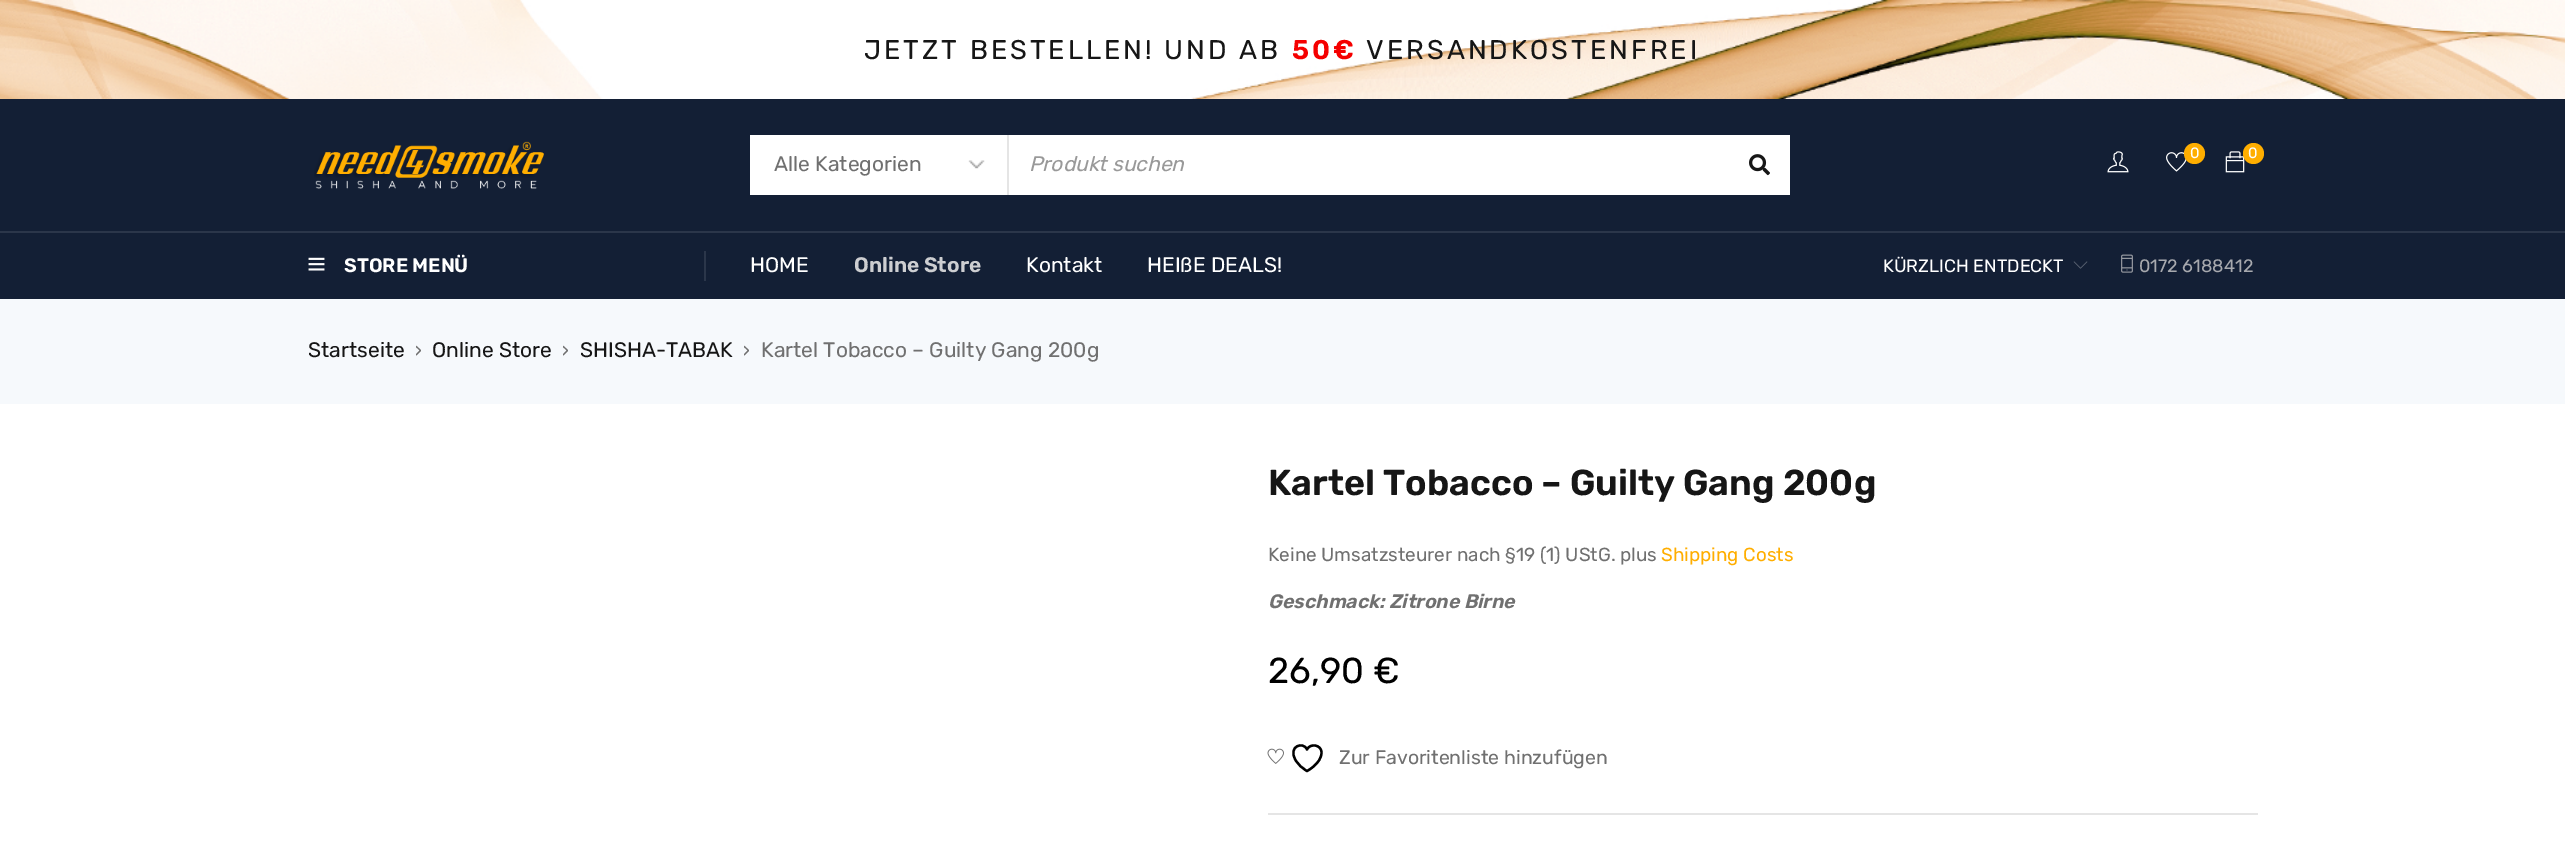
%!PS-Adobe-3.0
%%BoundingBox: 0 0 2565 851
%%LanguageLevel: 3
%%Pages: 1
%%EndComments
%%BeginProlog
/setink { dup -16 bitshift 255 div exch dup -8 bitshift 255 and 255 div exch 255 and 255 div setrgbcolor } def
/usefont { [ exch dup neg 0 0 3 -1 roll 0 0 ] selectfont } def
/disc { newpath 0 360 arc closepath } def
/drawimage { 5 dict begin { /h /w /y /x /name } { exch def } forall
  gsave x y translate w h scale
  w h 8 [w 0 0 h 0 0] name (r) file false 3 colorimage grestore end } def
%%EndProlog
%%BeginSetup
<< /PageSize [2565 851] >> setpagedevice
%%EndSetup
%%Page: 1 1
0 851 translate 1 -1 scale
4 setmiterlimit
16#FFFFFF setink
0 0 2565 851 rectfill
(img1.raw) 0 0 2565 99 drawimage
/Rubik-Regular 27 usefont
16#161616 setink
864 59 moveto 3 0 (JETZT BESTELLEN! UND AB) ashow
/Rubik-SemiBold 27 usefont
16#F50000 setink
1292 59 moveto 3 0 (50€) ashow
/Rubik-Regular 27 usefont
16#161616 setink
1366 59 moveto 3 0 (VERSANDKOSTENFREI) ashow
16#131F35 setink
0 99 2565 132 rectfill
(img2.raw) 314 141 230 48 drawimage
(img3.raw) 2107 151 22 22 drawimage
(img4.raw) 2166 152 21 20 drawimage
16#FFAE00 setink
2194.5 153.5 10.5 disc fill
/Rubik-Regular 15 usefont
16#FFFFFF setink
2190 158 moveto (0) show
(img5.raw) 2225 151 20 22 drawimage
16#FFAE00 setink
2253.5 153.5 10.5 disc fill
16#FFFFFF setink
2248 158 moveto (0) show
750 135 1040 60 rectfill
(img6.raw) 968 160 17 9 drawimage
/Rubik-Regular 21 usefont
16#707070 setink
774 171 moveto (Alle Kategorien) show
16#E5E5E5 setink
1007 135 2 60 rectfill
/Rubik-Italic 21 usefont
16#999999 setink
1029 171 moveto (Produkt suchen) show
(img7.raw) 1749 154 21 22 drawimage
16#131F35 setink
0 233 2565 66 rectfill
16#2B364A setink
0 231 2565 2 rectfill
(img8.raw) 308 257 17 14 drawimage
/Rubik-SemiBold 19.5 usefont
16#FFFFFF setink
344 272 moveto (STORE MENÜ) show
16#2B364A setink
704 251 2 30 rectfill
/Rubik-Regular 21 usefont
16#FFFFFF setink
750 272 moveto (HOME) show
/Rubik-SemiBold 21 usefont
16#CDCED1 setink
854 272 moveto (Online Store) show
/Rubik-Regular 21 usefont
16#FFFFFF setink
1026 272 moveto (Kontakt) show
1147 272 moveto (HEIßE DEALS!) show
/Rubik-Regular 18 usefont
1883 272 moveto (KÜRZLICH ENTDECKT) show
(img9.raw) 2073 261 15 8 drawimage
(img10.raw) 2121 254 12 19 drawimage
16#A7A9AE setink
2139 272 moveto (0172 6188412) show
16#F6F9FC setink
0 299 2565 105 rectfill
/Rubik-Regular 21 usefont
16#161616 setink
308 357 moveto (Startseite) show
/Rubik-Regular 19.5 usefont
16#707070 setink
415 357 moveto (›) show
/Rubik-Regular 21 usefont
16#161616 setink
432 357 moveto (Online Store) show
/Rubik-Regular 19.5 usefont
16#707070 setink
562 357 moveto (›) show
/Rubik-Regular 21 usefont
16#161616 setink
580 357 moveto (SHISHA-TABAK) show
/Rubik-Regular 19.5 usefont
16#707070 setink
743 357 moveto (›) show
/Rubik-Regular 21 usefont
761 357 moveto (Kartel Tobacco – Guilty Gang 200g) show
/Rubik-SemiBold 36 usefont
16#161616 setink
1268 495 moveto (Kartel Tobacco – Guilty Gang 200g) show
/Rubik-Regular 18.9 usefont
16#707070 setink
1268 561 moveto (Keine Umsatzsteurer nach §19 \(1\) UStG. plus) show
16#FFAE00 setink
1661 561 moveto (Shipping Costs) show
/Rubik-SemiBoldItalic 19.5 usefont
16#707070 setink
1268 608 moveto (Geschmack: Zitrone Birne) show
/Rubik-Regular 36 usefont
16#000000 setink
1268 683 moveto (26,90 €) show
(img11.raw) 1267 748 17 16 drawimage
2.3 setlinewidth
1 setlinecap
1 setlinejoin
1321.5 752.5 moveto 1321.5 744.5 1310 743 1307 749.5 curveto 1303.5 741 1287.5 746 1295.5 760 curveto 1298 764.5 1302.5 768.5 1307 771 curveto 1307 771 1321.5 763.5 1321.5 752.5 curveto closepath stroke
/Rubik-Regular 19.5 usefont
16#707070 setink
1339 764 moveto (Zur Favoritenliste hinzufügen) show
16#E5E5E5 setink
1268 813 990 2 rectfill
showpage
%%EOF
